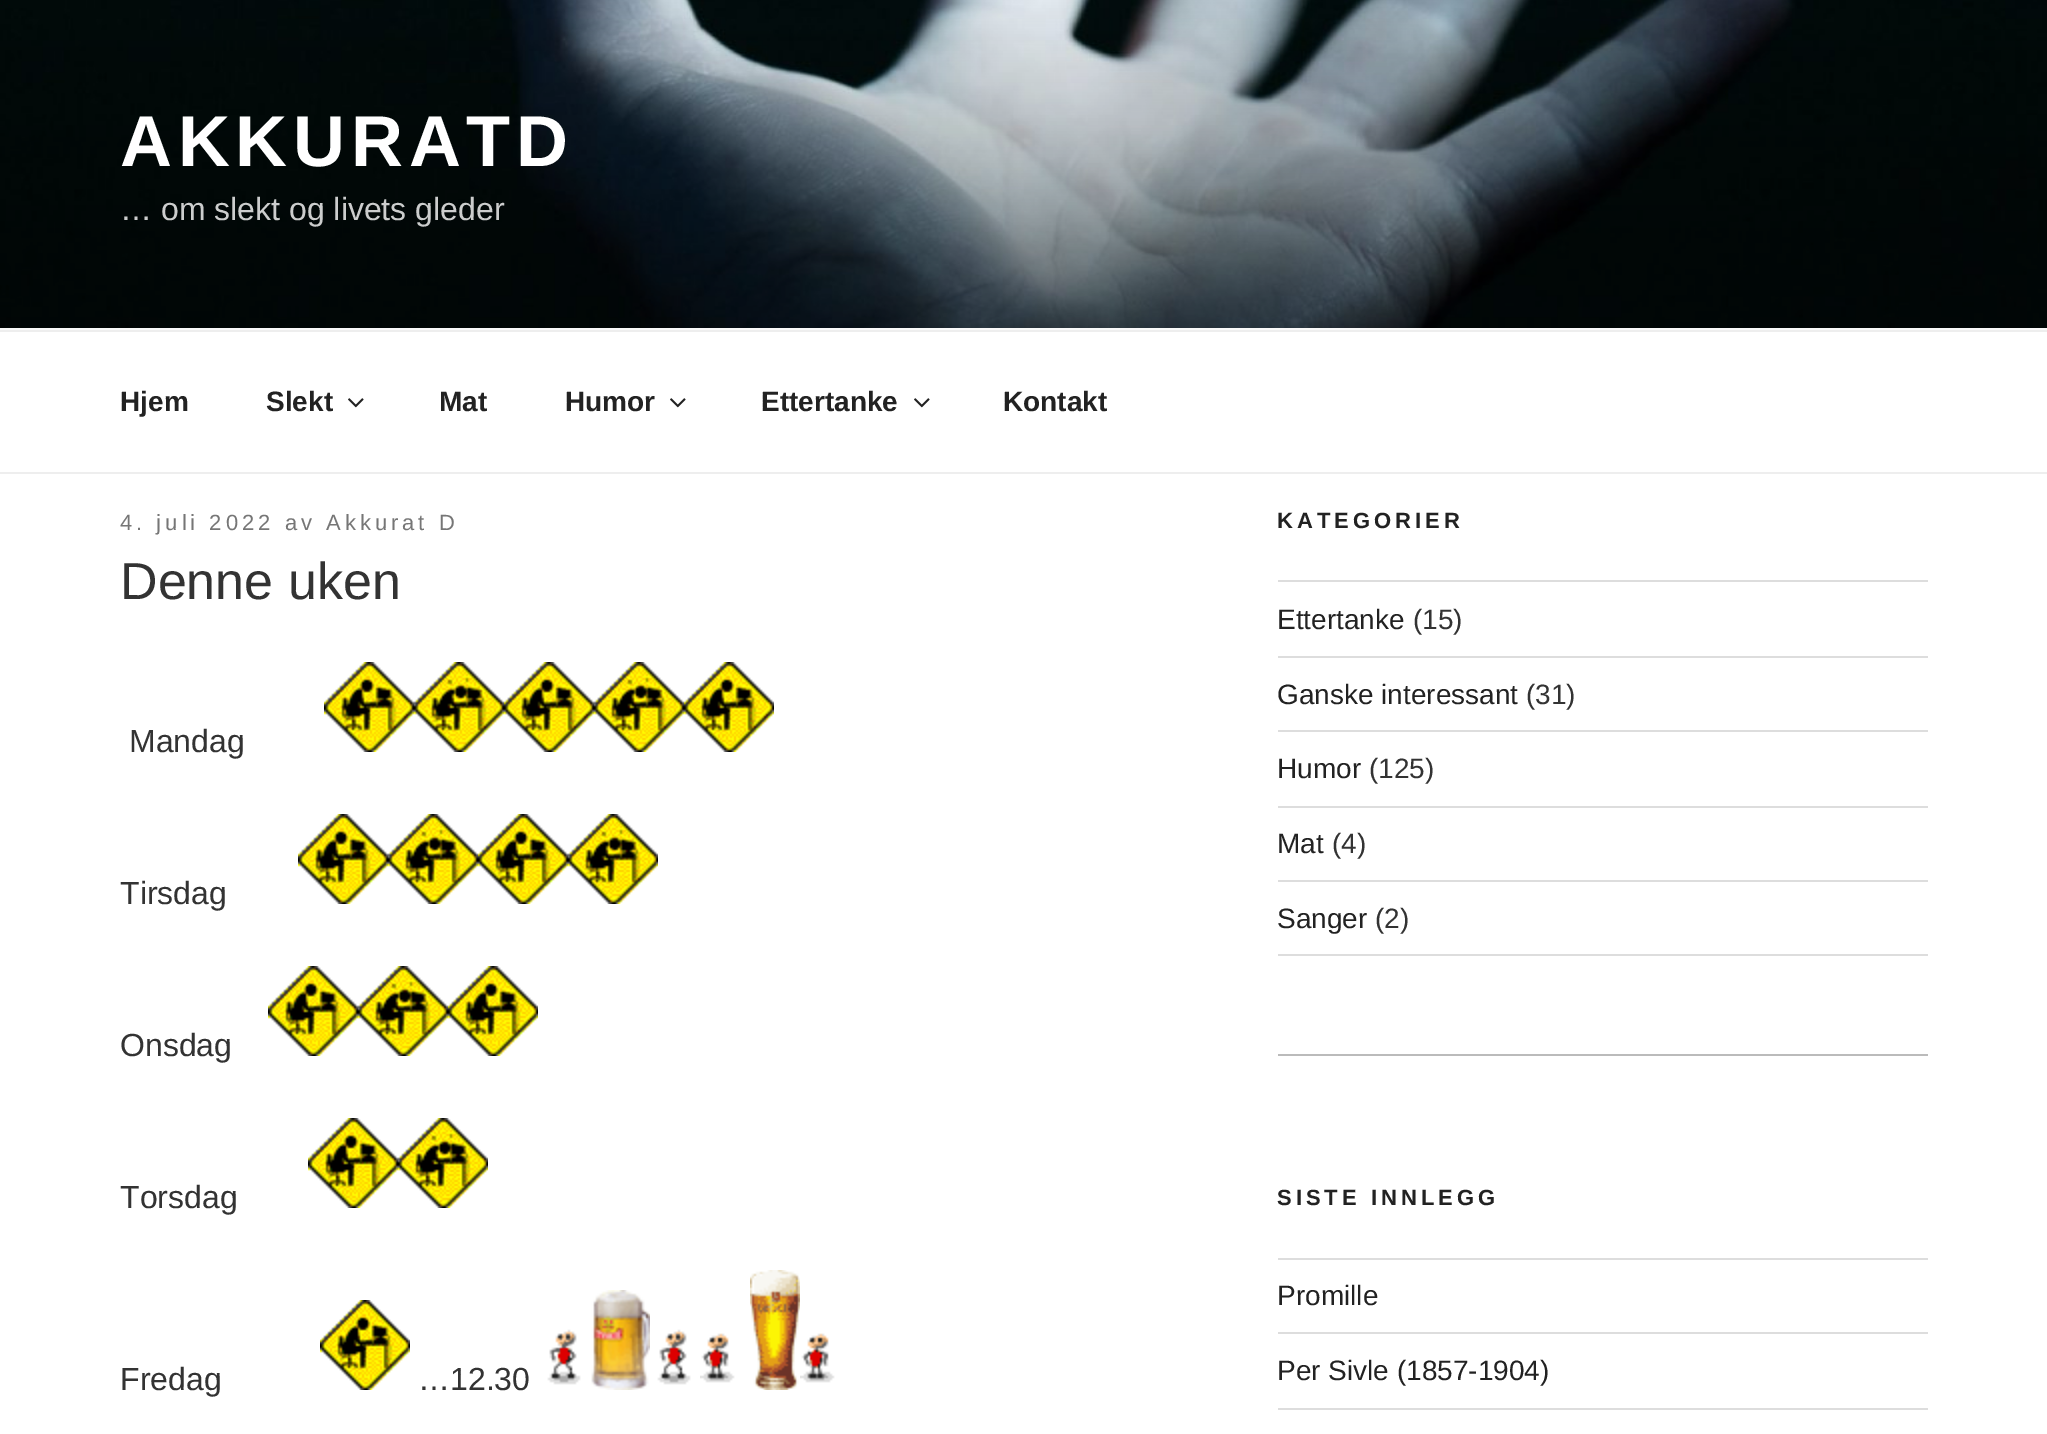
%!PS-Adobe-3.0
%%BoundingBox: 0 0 2047 1434
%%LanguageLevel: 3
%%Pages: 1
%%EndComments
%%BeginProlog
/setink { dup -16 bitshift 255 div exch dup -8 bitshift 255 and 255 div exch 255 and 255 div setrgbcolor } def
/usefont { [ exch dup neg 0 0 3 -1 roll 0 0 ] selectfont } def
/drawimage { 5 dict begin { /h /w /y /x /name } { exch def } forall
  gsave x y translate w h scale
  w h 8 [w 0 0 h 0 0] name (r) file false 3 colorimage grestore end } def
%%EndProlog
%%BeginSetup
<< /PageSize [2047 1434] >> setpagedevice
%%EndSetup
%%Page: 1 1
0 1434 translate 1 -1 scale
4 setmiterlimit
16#FFFFFF setink
0 0 2047 1434 rectfill
16#FAFAFA setink
0 328 2047 2 rectfill
(img1.raw) 0 0 2047 328 drawimage
/LiberationSans-Bold 72 usefont
16#FFFFFF setink
120 166 moveto 5.75 0 (AKKURATD) ashow
/LiberationSans-Regular 32 usefont
16#CCCDCD setink
120 220 moveto (… om slekt og livets gleder) show
16#EEEEEE setink
0 330 2047 2 rectfill
0 472 2047 2 rectfill
/LiberationSans-Bold 28 usefont
16#222222 setink
120 411 moveto (Hjem) show
266 411 moveto (Slekt) show
(img2.raw) 348 398 16 10 drawimage
439 411 moveto (Mat) show
565 411 moveto (Humor) show
(img2.raw) 670 398 16 10 drawimage
761 411 moveto (Ettertanke) show
(img2.raw) 914 398 16 10 drawimage
1003 411 moveto (Kontakt) show
/LiberationSans-Regular 22 usefont
16#767676 setink
120 530 moveto 4 0 (4. juli 2022 av Akkurat D) ashow
/LiberationSans-Regular 52 usefont
16#333333 setink
120 599 moveto (Denne uken) show
/LiberationSans-Regular 32 usefont
129 752 moveto (Mandag) show
(img3.raw) 324 662 90 90 drawimage
(img4.raw) 414 662 90 90 drawimage
(img3.raw) 504 662 90 90 drawimage
(img4.raw) 594 662 90 90 drawimage
(img3.raw) 684 662 90 90 drawimage
120 904 moveto (Tirsdag) show
(img3.raw) 298 814 90 90 drawimage
(img4.raw) 388 814 90 90 drawimage
(img3.raw) 478 814 90 90 drawimage
(img4.raw) 568 814 90 90 drawimage
120 1056 moveto (Onsdag) show
(img3.raw) 268 966 90 90 drawimage
(img4.raw) 358 966 90 90 drawimage
(img3.raw) 448 966 90 90 drawimage
120 1208 moveto (Torsdag) show
(img3.raw) 308 1118 90 90 drawimage
(img4.raw) 398 1118 90 90 drawimage
120 1390 moveto (Fredag) show
(img3.raw) 320 1300 90 90 drawimage
418 1390 moveto (…12.30) show
(img5.raw) 547 1329 34 56 drawimage
(img6.raw) 591 1290 59 100 drawimage
(img5.raw) 657 1329 34 56 drawimage
(img7.raw) 700 1333 35 50 drawimage
(img8.raw) 750 1270 50 120 drawimage
(img7.raw) 800 1333 35 50 drawimage
/LiberationSans-Bold 22 usefont
16#222222 setink
1277 528 moveto 4 0 (KATEGORIER) ashow
16#DDDDDD setink
1278 580 650 2 rectfill
1278 656 650 2 rectfill
/LiberationSans-Regular 28 usefont
16#222222 setink
1277 629 moveto (Ettertanke) show
16#333333 setink
1413 629 moveto (\(15\)) show
16#DDDDDD setink
1278 730 650 2 rectfill
16#222222 setink
1277 704 moveto (Ganske interessant) show
16#333333 setink
1526 704 moveto (\(31\)) show
16#DDDDDD setink
1278 806 650 2 rectfill
16#222222 setink
1277 778 moveto (Humor) show
16#333333 setink
1369 778 moveto (\(125\)) show
16#DDDDDD setink
1278 880 650 2 rectfill
16#222222 setink
1277 853 moveto (Mat) show
16#333333 setink
1332 853 moveto (\(4\)) show
16#DDDDDD setink
1278 954 650 2 rectfill
16#222222 setink
1277 928 moveto (Sanger) show
16#333333 setink
1375 928 moveto (\(2\)) show
16#BBBBBB setink
1278 1054 650 2 rectfill
/LiberationSans-Bold 22 usefont
16#222222 setink
1277 1205 moveto 4 0 (SISTE INNLEGG) ashow
16#DDDDDD setink
1278 1258 650 2 rectfill
1278 1332 650 2 rectfill
/LiberationSans-Regular 28 usefont
16#222222 setink
1277 1305 moveto (Promille) show
16#DDDDDD setink
1278 1408 650 2 rectfill
16#222222 setink
1277 1380 moveto (Per Sivle \(1857-1904\)) show
showpage
%%EOF
